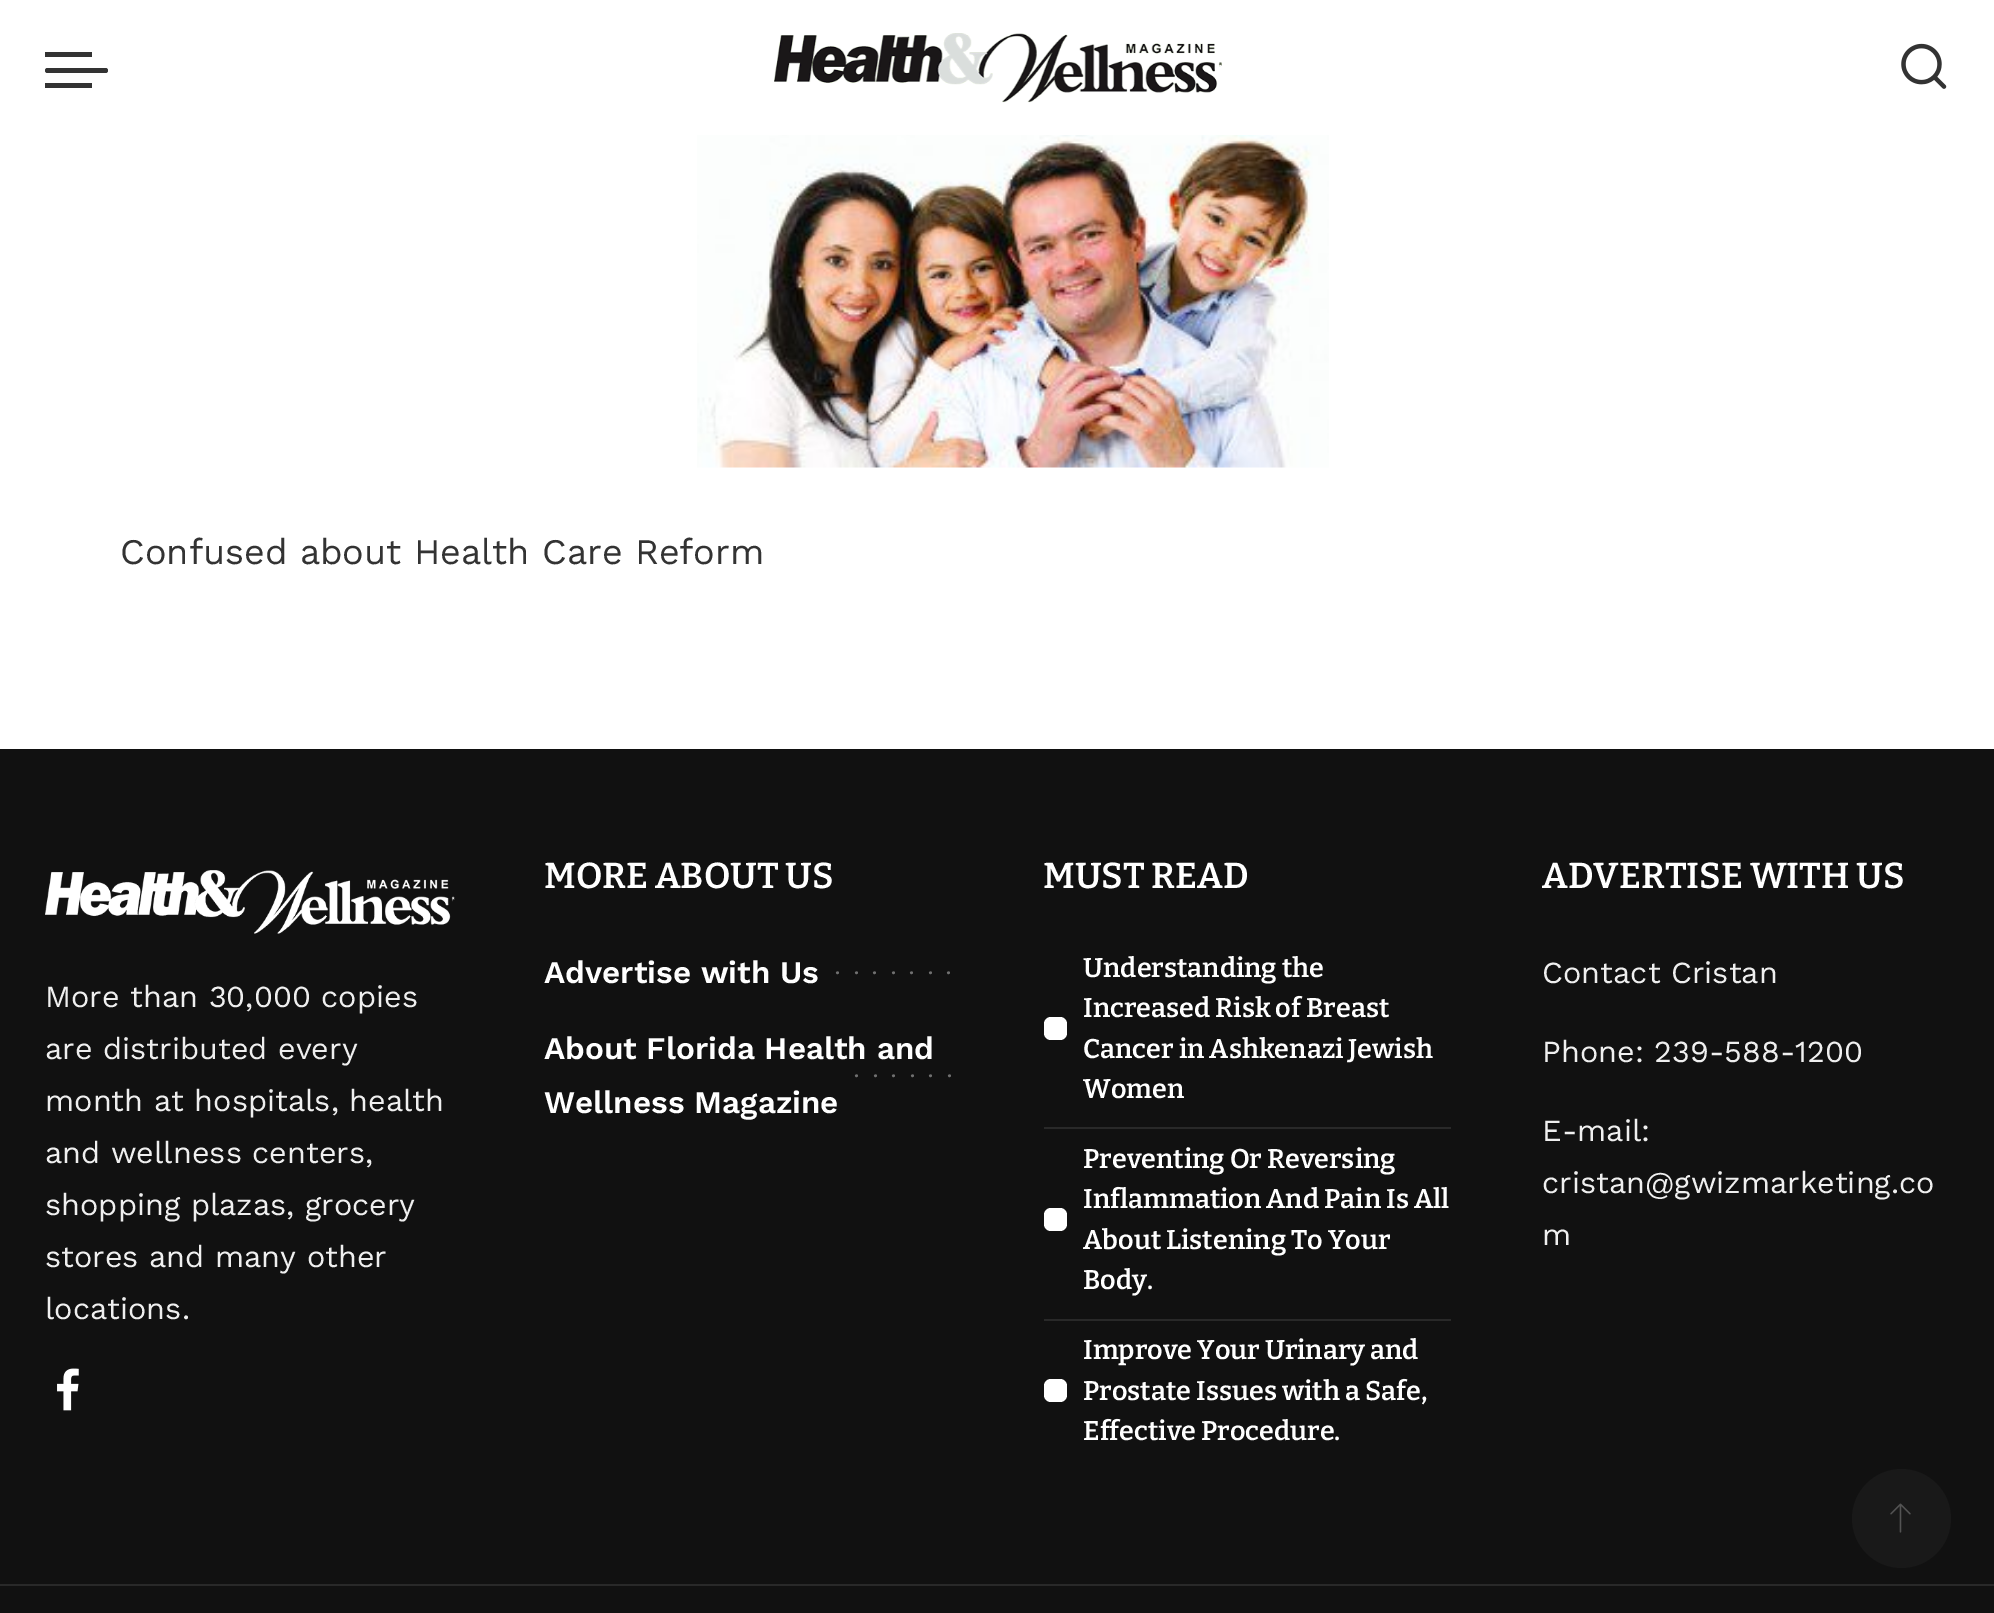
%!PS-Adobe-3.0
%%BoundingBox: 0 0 1994 1613
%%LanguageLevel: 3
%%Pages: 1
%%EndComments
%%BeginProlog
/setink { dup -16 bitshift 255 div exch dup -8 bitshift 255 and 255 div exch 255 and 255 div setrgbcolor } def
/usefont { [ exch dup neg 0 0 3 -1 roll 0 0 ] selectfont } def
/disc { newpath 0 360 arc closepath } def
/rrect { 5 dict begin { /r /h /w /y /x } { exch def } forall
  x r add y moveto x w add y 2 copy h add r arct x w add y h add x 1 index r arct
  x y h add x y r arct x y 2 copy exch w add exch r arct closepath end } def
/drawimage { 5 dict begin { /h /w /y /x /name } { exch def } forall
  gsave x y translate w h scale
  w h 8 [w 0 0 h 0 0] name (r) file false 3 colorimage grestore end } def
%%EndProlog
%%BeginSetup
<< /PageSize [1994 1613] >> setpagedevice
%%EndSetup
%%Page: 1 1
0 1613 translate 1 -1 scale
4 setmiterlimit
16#FFFFFF setink
0 0 1994 1613 rectfill
16#333333 setink
45 68 63 5 2.5 rrect fill
45 52 47 5 rectfill
45 83 47 5 rectfill
(img1.raw) 774 33 448 70 drawimage
(img2.raw) 1901 43 46 46 drawimage
(img3.raw) 697 135 632 333 drawimage
/WorkSans-Regular 36 usefont
120 564 moveto (Confused about Health Care Reform) show
16#111111 setink
0 749 1994 864 rectfill
(img4.raw) 45 870 410 64 drawimage
/WorkSans-Regular 30.6 usefont
16#EFEFEF setink
[
    [(More than 30,000 copies) 45 1007]
    [(are distributed every) 45 1059]
    [(month at hospitals, health) 45 1111]
    [(and wellness centers,) 45 1163]
    [(shopping plazas, grocery) 45 1215]
    [(stores and many other) 45 1267]
    [(locations.) 45 1319]
] { aload pop moveto show } forall
(img5.raw) 57 1368 22 43 drawimage
/Bitter-SemiBold 36 usefont
16#FFFFFF setink
544 888 moveto (MORE ABOUT US) show
/WorkSans-SemiBold 31.5 usefont
544 983 moveto (Advertise with Us) show
/WorkSans-SemiBold 18 usefont
16#707070 setink
835 974 moveto 13.5 0 (.......) ashow
/WorkSans-SemiBold 31.5 usefont
16#FFFFFF setink
544 1059 moveto (About Florida Health and) show
/WorkSans-SemiBold 18 usefont
16#707070 setink
854 1077 moveto 13.5 0 (......) ashow
/WorkSans-SemiBold 31.5 usefont
16#FFFFFF setink
544 1113 moveto (Wellness Magazine) show
/Bitter-SemiBold 36 usefont
1043 888 moveto (MUST READ) show
16#292929 setink
1044 1127 407 2 rectfill
16#FFFFFF setink
1044 1017 23 23 7 rrect fill
/Bitter-SemiBold 27 usefont
[
    [(Understanding the) 1083 977]
    [(Increased Risk of Breast) 1083 1017]
    [(Cancer in Ashkenazi Jewish) 1083 1058]
    [(Women) 1083 1098]
] { aload pop moveto show } forall
16#292929 setink
1044 1319 407 2 rectfill
16#FFFFFF setink
1044 1208 23 23 7 rrect fill
[
    [(Preventing Or Reversing) 1083 1168]
    [(Inflammation And Pain Is All) 1083 1208]
    [(About Listening To Your) 1083 1249]
    [(Body.) 1083 1289]
] { aload pop moveto show } forall
1044 1379 23 23 7 rrect fill
[
    [(Improve Your Urinary and) 1083 1359]
    [(Prostate Issues with a Safe,) 1083 1400]
    [(Effective Procedure.) 1083 1440]
] { aload pop moveto show } forall
/Bitter-SemiBold 36 usefont
1542 888 moveto (ADVERTISE WITH US) show
/WorkSans-Regular 30.6 usefont
16#EFEFEF setink
[
    [(Contact Cristan) 1542 983]
    [(Phone: 239-588-1200) 1542 1062]
    [(E-mail:) 1542 1141]
    [(cristan@gwizmarketing.co) 1542 1193]
    [(m) 1542 1245]
] { aload pop moveto show } forall
16#292929 setink
0 1584 1994 2 rectfill
16#191919 setink
1901.5 1518.5 49.5 disc fill
(img6.raw) 1890 1503 21 30 drawimage
showpage
%%EOF
